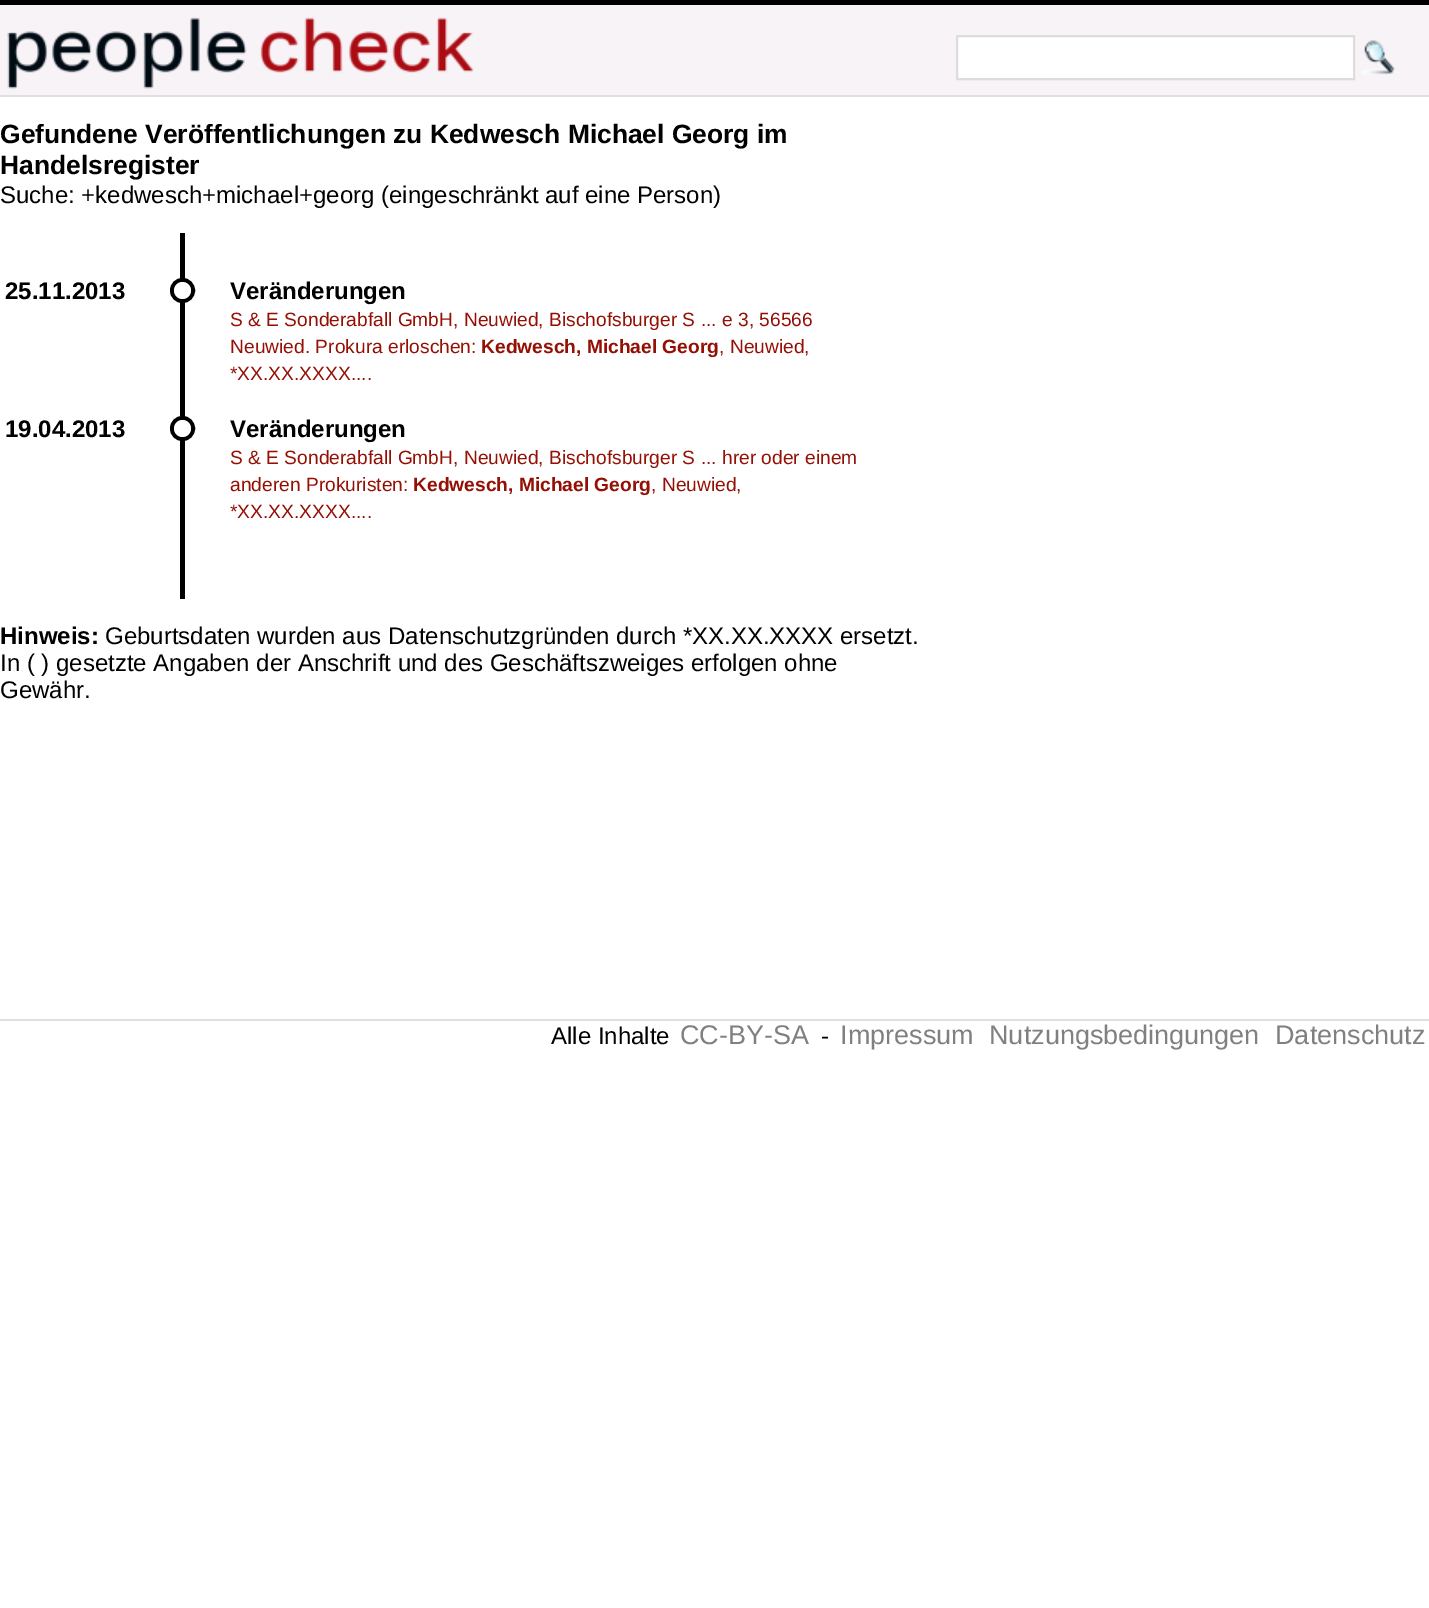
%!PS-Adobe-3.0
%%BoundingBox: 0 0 1429 1608
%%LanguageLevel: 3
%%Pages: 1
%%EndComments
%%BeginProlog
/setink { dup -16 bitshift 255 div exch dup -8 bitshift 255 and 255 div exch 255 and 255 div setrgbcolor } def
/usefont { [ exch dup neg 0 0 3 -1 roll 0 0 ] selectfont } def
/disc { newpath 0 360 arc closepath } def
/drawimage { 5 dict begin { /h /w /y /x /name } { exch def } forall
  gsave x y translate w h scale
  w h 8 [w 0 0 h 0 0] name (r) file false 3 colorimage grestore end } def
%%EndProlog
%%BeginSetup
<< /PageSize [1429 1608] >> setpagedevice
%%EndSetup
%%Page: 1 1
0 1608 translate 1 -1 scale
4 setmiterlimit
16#FFFFFF setink
0 0 1429 1608 rectfill
[
    [0 5 1429 90 16#F7F3F7]
    [0 0 1429 5 16#000000]
    [0 95 1429 2 16#E0E0E0]
] { aload pop setink rectfill } forall
(img1.raw) 7 17 467 72 drawimage
16#FFFFFF setink
957 36 moveto 1354 36 lineto 1354 79 lineto 957 79 lineto closepath gsave fill grestore
16#DDDDDD setink
2 setlinewidth
stroke
(img2.raw) 1361 40 38 35 drawimage
/LiberationSans-Bold 26.4 usefont
16#000000 setink
0 143 moveto (Gefundene Veröffentlichungen zu Kedwesch Michael Georg im) show
0 174 moveto (Handelsregister) show
/LiberationSans-Regular 24 usefont
0 203 moveto (Suche: +kedwesch+michael+georg \(eingeschränkt auf eine Person\)) show
180 233 5 366 rectfill
/LiberationSans-Bold 24 usefont
5 299 moveto (25.11.2013) show
5 setlinewidth
182.5 290.5 10 disc stroke
16#FFFFFF setink
182.5 290.5 8.5 disc fill
16#000000 setink
230 299 moveto (Veränderungen) show
/LiberationSans-Regular 19.2 usefont
16#940F04 setink
230 326 moveto (S & E Sonderabfall GmbH, Neuwied, Bischofsburger S ... e 3, 56566) show
230 353 moveto (Neuwied. Prokura erloschen:) show
/LiberationSans-Bold 19.2 usefont
481 353 moveto (Kedwesch, Michael Georg) show
/LiberationSans-Regular 19.2 usefont
719 353 moveto (, Neuwied,) show
230 380 moveto (*XX.XX.XXXX....) show
/LiberationSans-Bold 24 usefont
16#000000 setink
5 437 moveto (19.04.2013) show
182.5 428.5 10 disc stroke
16#FFFFFF setink
182.5 428.5 8.5 disc fill
16#000000 setink
230 437 moveto (Veränderungen) show
/LiberationSans-Regular 19.2 usefont
16#940F04 setink
230 464 moveto (S & E Sonderabfall GmbH, Neuwied, Bischofsburger S ... hrer oder einem) show
230 491 moveto (anderen Prokuristen:) show
/LiberationSans-Bold 19.2 usefont
413 491 moveto (Kedwesch, Michael Georg) show
/LiberationSans-Regular 19.2 usefont
651 491 moveto (, Neuwied,) show
230 518 moveto (*XX.XX.XXXX....) show
/LiberationSans-Bold 24 usefont
16#000000 setink
0 644 moveto (Hinweis:) show
/LiberationSans-Regular 24 usefont
[
    [(Geburtsdaten wurden aus Datenschutzgründen durch *XX.XX.XXXX ersetzt.) 105 644]
    [(In \( \) gesetzte Angaben der Anschrift und des Geschäftszweiges erfolgen ohne) 0 671]
    [(Gewähr.) 0 698]
] { aload pop moveto show } forall
16#E0E0E0 setink
0 1019 1429 2 rectfill
16#000000 setink
551 1044 moveto (Alle Inhalte) show
/LiberationSans-Regular 27 usefont
16#808080 setink
680 1044 moveto (CC-BY-SA) show
/LiberationSans-Regular 24 usefont
16#000000 setink
821 1044 moveto (-) show
/LiberationSans-Regular 27 usefont
16#808080 setink
[
    [(Impressum) 840 1044]
    [(Nutzungsbedingungen) 989 1044]
    [(Datenschutz) 1275 1044]
] { aload pop moveto show } forall
showpage
%%EOF
